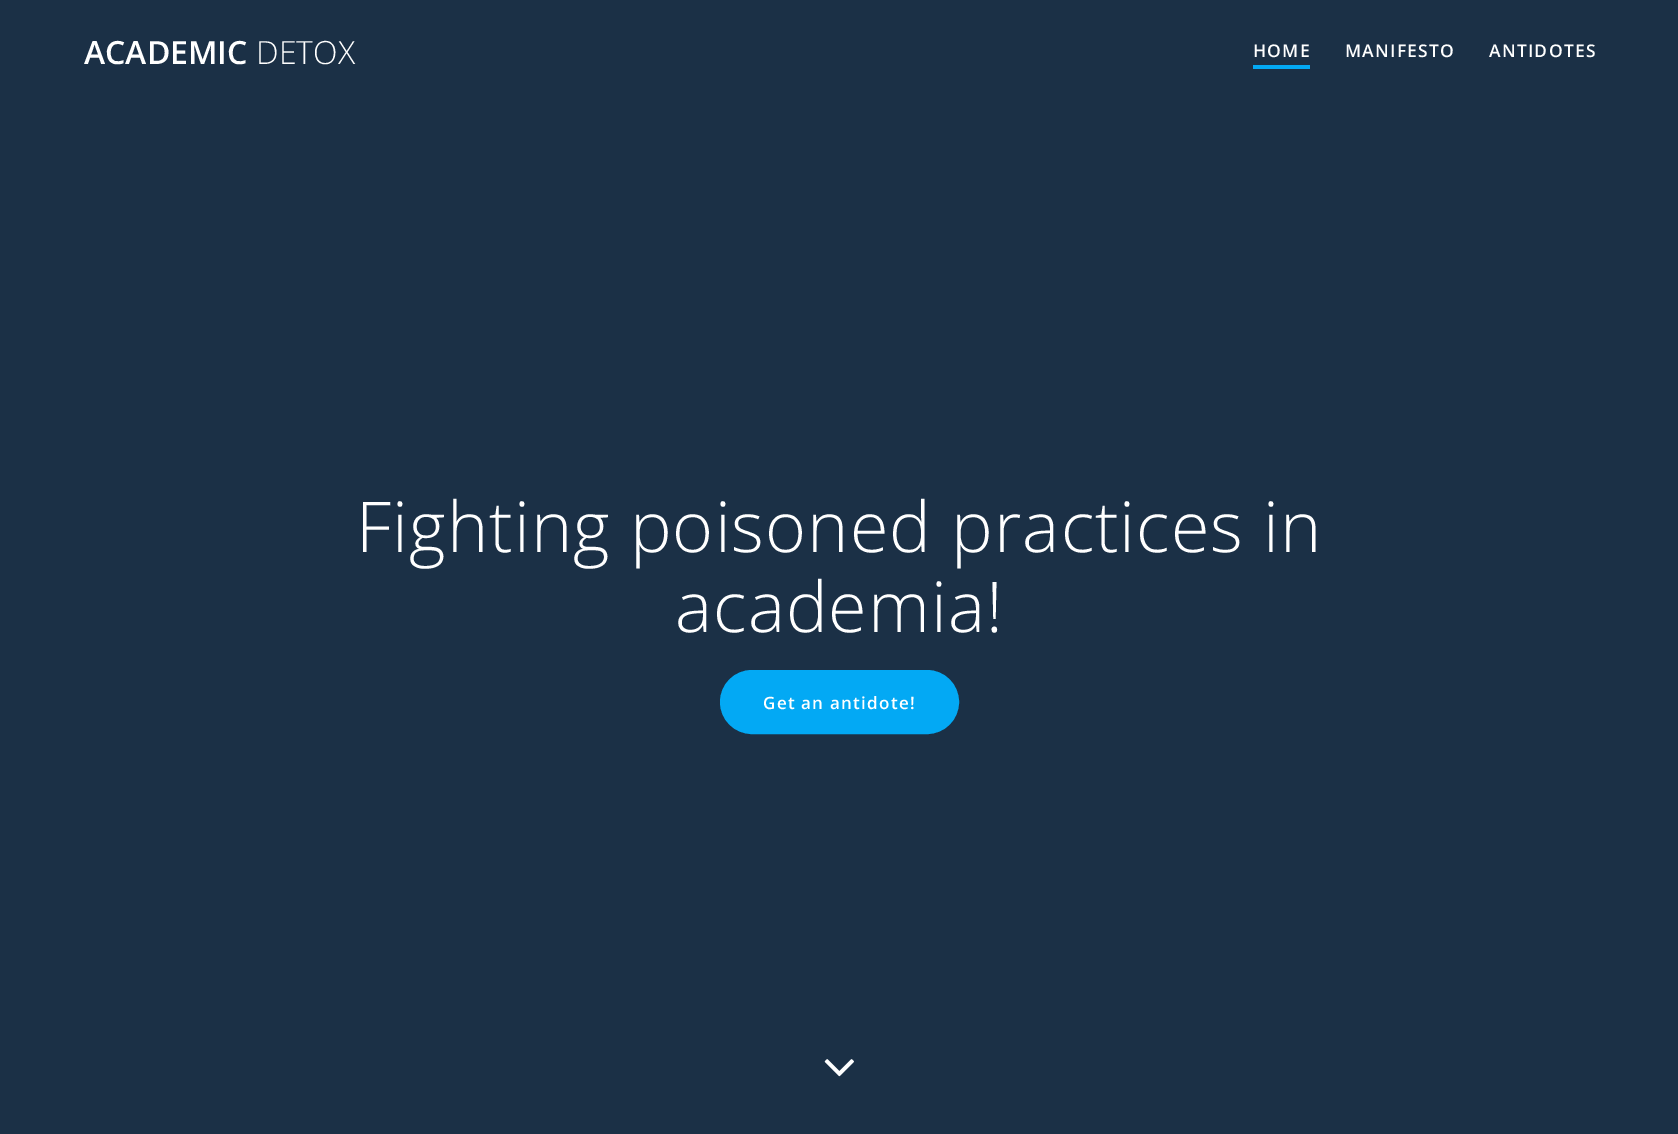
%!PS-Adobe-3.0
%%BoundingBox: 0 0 1678 1134
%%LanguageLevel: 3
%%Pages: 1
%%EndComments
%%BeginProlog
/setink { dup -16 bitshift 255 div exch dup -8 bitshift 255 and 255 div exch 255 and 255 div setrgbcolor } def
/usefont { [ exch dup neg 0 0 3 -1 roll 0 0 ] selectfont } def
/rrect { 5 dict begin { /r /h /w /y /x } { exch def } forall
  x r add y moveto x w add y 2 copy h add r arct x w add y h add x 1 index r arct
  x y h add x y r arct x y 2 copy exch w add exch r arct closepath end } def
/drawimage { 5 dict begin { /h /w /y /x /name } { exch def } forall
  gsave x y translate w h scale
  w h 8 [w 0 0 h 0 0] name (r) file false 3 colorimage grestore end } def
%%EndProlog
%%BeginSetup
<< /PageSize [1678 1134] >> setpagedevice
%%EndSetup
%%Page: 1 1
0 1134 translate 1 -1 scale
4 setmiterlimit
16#1B3046 setink
0 0 1678 1134 rectfill
/OpenSans-SemiBold 32 usefont
16#FFFFFF setink
84 64 moveto (ACADEMIC) show
/OpenSans-Light 32 usefont
256 64 moveto (DETOX) show
16#03A9F4 setink
1253 65 57 4 rectfill
/OpenSans-SemiBold 17.5 usefont
16#FFFFFF setink
1253 57 moveto 1.25 0 (HOME) ashow
1345 57 moveto 1.25 0 (MANIFESTO) ashow
1489 57 moveto 1.25 0 (ANTIDOTES) ashow
/OpenSans-Light 70 usefont
356 552 moveto 1.1 0 (Fighting poisoned practices in) ashow
675 632 moveto 1.1 0 (academia!) ashow
16#03A9F4 setink
721.5 671.5 236 61 30.5 rrect gsave fill grestore
3 setlinewidth
stroke
/OpenSans-SemiBold 17 usefont
16#FFFFFF setink
763 709 moveto 1.25 0 (Get an antidote!) ashow
(img1.raw) 824 1059 30 18 drawimage
showpage
%%EOF
